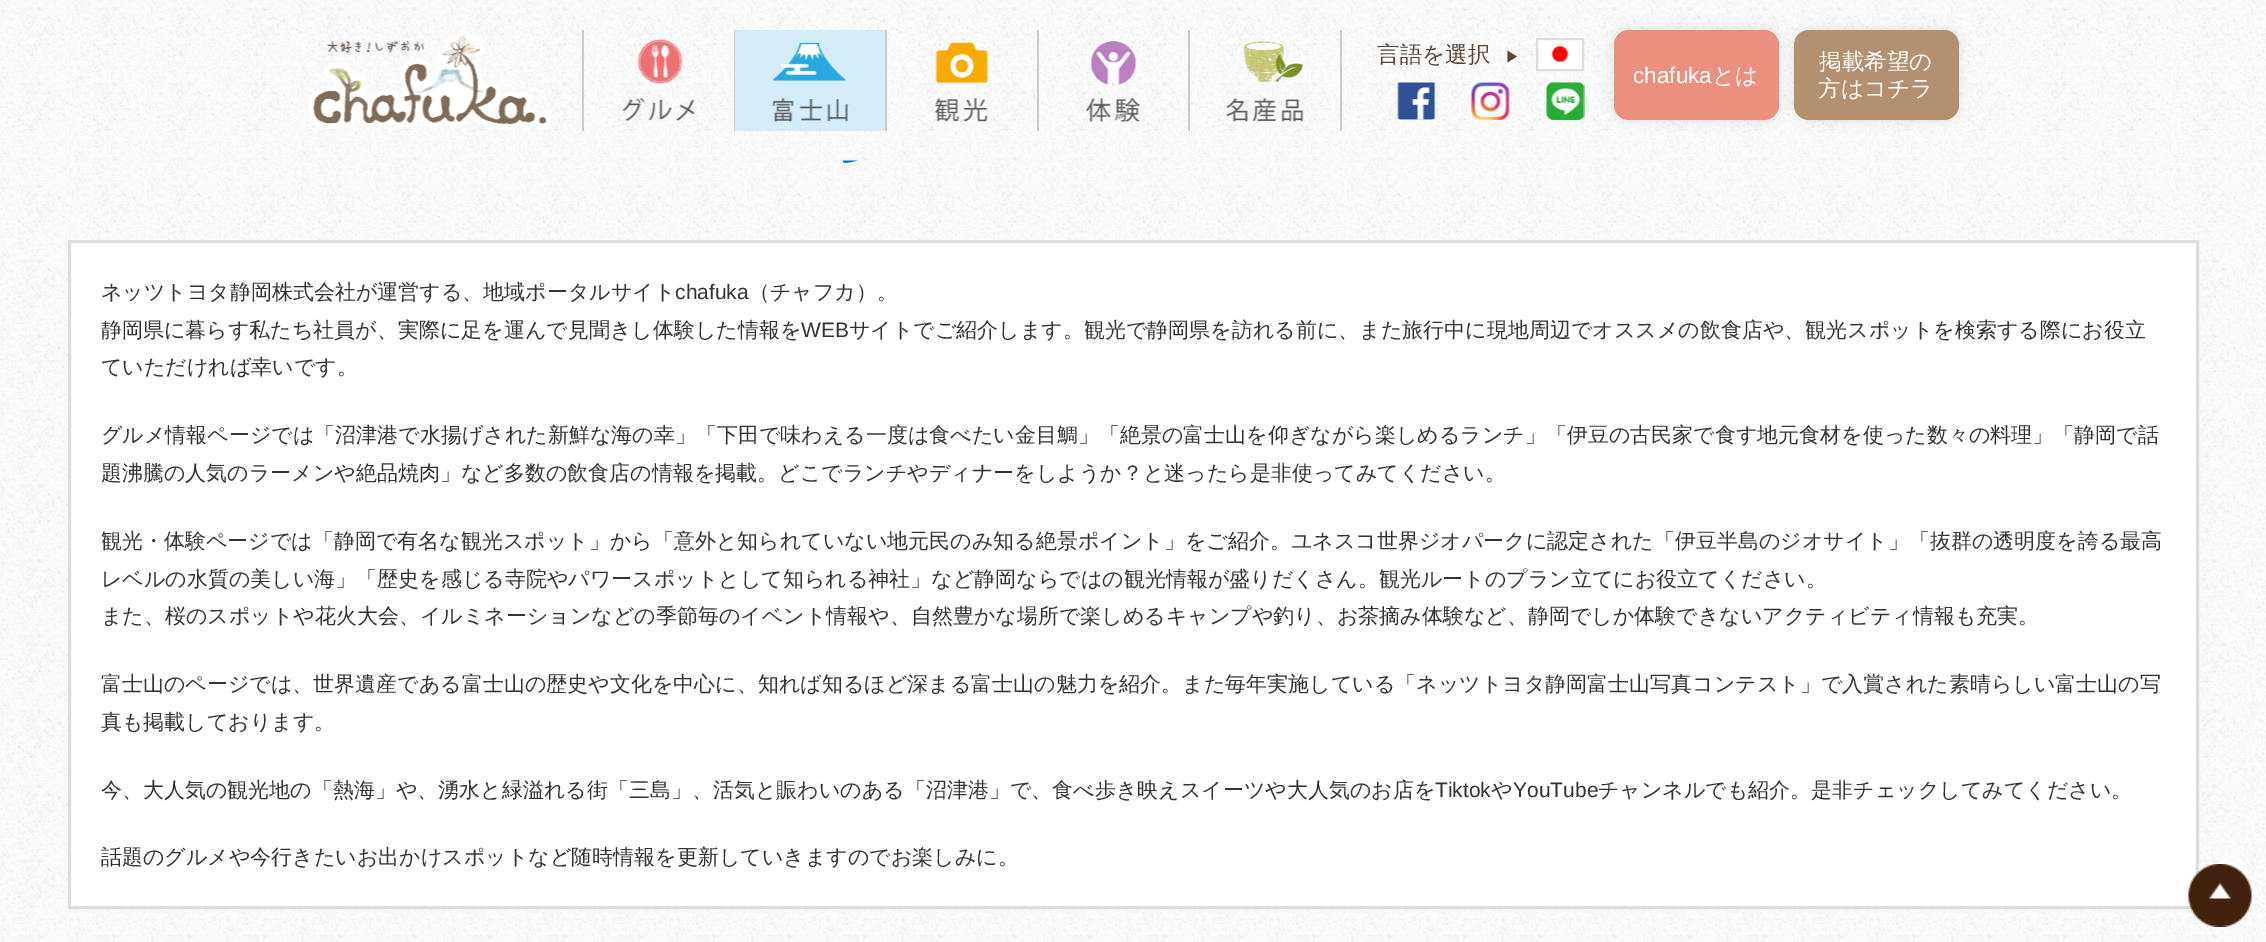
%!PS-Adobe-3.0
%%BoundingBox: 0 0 2266 942
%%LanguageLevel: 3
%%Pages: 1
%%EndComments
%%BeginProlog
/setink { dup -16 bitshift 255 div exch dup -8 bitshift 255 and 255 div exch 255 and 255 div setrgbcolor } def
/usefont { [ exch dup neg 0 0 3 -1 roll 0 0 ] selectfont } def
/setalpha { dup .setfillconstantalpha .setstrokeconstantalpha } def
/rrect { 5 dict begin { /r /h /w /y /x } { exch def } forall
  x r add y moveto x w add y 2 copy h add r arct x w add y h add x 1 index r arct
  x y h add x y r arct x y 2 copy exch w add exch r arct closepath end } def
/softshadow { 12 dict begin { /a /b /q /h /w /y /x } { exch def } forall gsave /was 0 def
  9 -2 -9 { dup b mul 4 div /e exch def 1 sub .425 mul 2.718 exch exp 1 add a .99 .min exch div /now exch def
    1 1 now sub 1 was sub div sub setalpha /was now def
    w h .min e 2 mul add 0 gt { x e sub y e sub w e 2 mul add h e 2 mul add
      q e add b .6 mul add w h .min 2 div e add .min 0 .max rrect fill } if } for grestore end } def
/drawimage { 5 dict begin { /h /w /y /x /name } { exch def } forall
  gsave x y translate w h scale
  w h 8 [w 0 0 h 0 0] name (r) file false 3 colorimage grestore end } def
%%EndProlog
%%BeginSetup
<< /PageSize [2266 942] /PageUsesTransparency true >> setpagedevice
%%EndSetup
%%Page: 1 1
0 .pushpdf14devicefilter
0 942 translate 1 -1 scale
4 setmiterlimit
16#FFFFFF setink
0 0 2266 942 rectfill
(img1.raw) 0 160 2266 782 drawimage
(img13.raw) 842 160 17 3 drawimage
(img2.raw) 0 0 2266 161 drawimage
(img3.raw) 309 31 242 99 drawimage
16#CCCCCC setink
582 30 2 101 rectfill
734 30 1 101 rectfill
(img4.raw) 622 39 73 82 drawimage
16#D4EDF9 setink
735 30 150 101 rectfill
16#CCCCCC setink
885 30 2 101 rectfill
(img5.raw) 772 42 77 80 drawimage
1037 30 2 101 rectfill
(img6.raw) 934 42 55 80 drawimage
1188 30 2 101 rectfill
(img7.raw) 1086 41 54 81 drawimage
1340 30 2 101 rectfill
(img8.raw) 1226 41 78 81 drawimage
/WenQuanYiZenHei-Medium 22.5 usefont
16#5A4536 setink
1377 62 moveto (言語を選択) show
/WenQuanYiZenHei-Medium 15 usefont
1505 62 moveto (▶) show
(img9.raw) 1538 40 44 29 drawimage
16#DDDDDD setink
2 setlinewidth
1537 39 46 31 rectstroke
(img10.raw) 1397 82 39 38 drawimage
(img11.raw) 1471 82 39 38 drawimage
(img12.raw) 1546 82 39 38 drawimage
16#000000 setink
1794 30 165 90 15 6 0.1 softshadow
16#B49070 setink
1794 30 165 90 15 rrect fill
16#000000 setink
1614 30 165 90 15 6 0.1 softshadow
16#EB8F7F setink
1614 30 165 90 15 rrect fill
/LiberationSans-Regular 22.5 usefont
16#FFFFFF setink
1633 83 moveto (chafuka) show
/WenQuanYiZenHei-Medium 22.5 usefont
[
    [(とは) 1712 83]
    [(掲載希望の) 1819 69]
    [(方はコチラ) 1818 96]
] { aload pop moveto show } forall
69.5 241.5 moveto 2197.5 241.5 lineto 2197.5 907.5 lineto 69.5 907.5 lineto closepath gsave fill grestore
16#DDDDDD setink
3 setlinewidth
stroke
/WenQuanYiZenHei-Medium 21 usefont
16#333333 setink
101 299 moveto (ネッツトヨタ静岡株式会社が運営する、地域ポータルサイト) show
/LiberationSans-Regular 21 usefont
675 299 moveto (chafuka) show
/WenQuanYiZenHei-Medium 21 usefont
749 299 moveto (（チャフカ）。) show
101 337 moveto (静岡県に暮らす私たち社員が、実際に足を運んで見聞きし体験した情報を) show
/LiberationSans-Regular 21 usefont
801 337 moveto (WEB) show
/WenQuanYiZenHei-Medium 21 usefont
[
    [(サイトでご紹介します。観光で静岡県を訪れる前に、また旅行中に現地周辺でオススメの飲食店や、観光スポットを検索する際にお役立) 849 337]
    [(ていただければ幸いです。) 101 374]
    [(グルメ情報ページでは「沼津港で水揚げされた新鮮な海の幸」「下田で味わえる一度は食べたい金目鯛」「絶景の富士山を仰ぎながら楽しめるランチ」「伊豆の古民家で食す地元食材を使った数々の料理」「静岡で話) 101 442]
    [(題沸騰の人気のラーメンや絶品焼肉」など多数の飲食店の情報を掲載。どこでランチやディナーをしようか？と迷ったら是非使ってみてください。) 101 480]
    [(観光・体験ページでは「静岡で有名な観光スポット」から「意外と知られていない地元民のみ知る絶景ポイント」をご紹介。ユネスコ世界ジオパークに認定された「伊豆半島のジオサイト」「抜群の透明度を誇る最高) 101 548]
    [(レベルの水質の美しい海」「歴史を感じる寺院やパワースポットとして知られる神社」など静岡ならではの観光情報が盛りだくさん。観光ルートのプラン立てにお役立てください。) 101 586]
    [(また、桜のスポットや花火大会、イルミネーションなどの季節毎のイベント情報や、自然豊かな場所で楽しめるキャンプや釣り、お茶摘み体験など、静岡でしか体験できないアクティビティ情報も充実。) 101 623]
    [(富士山のページでは、世界遺産である富士山の歴史や文化を中心に、知れば知るほど深まる富士山の魅力を紹介。また毎年実施している「ネッツトヨタ静岡富士山写真コンテスト」で入賞された素晴らしい富士山の写) 101 691]
    [(真も掲載しております。) 101 729]
    [(今、大人気の観光地の「熱海」や、湧水と緑溢れる街「三島」、活気と賑わいのある「沼津港」で、食べ歩き映えスイーツや大人気のお店を) 101 797]
] { aload pop moveto show } forall
/LiberationSans-Regular 21 usefont
1435 797 moveto (Tiktok) show
/WenQuanYiZenHei-Medium 21 usefont
1491 797 moveto (や) show
/LiberationSans-Regular 21 usefont
1513 797 moveto (YouTube) show
/WenQuanYiZenHei-Medium 21 usefont
1598 797 moveto (チャンネルでも紹介。是非チェックしてみてください。) show
101 864 moveto (話題のグルメや今行きたいお出かけスポットなど随時情報を更新していきますのでお楽しみに。) show
(img14.raw) 2188 864 64 63 drawimage
.poppdf14devicefilter showpage
%%EOF
